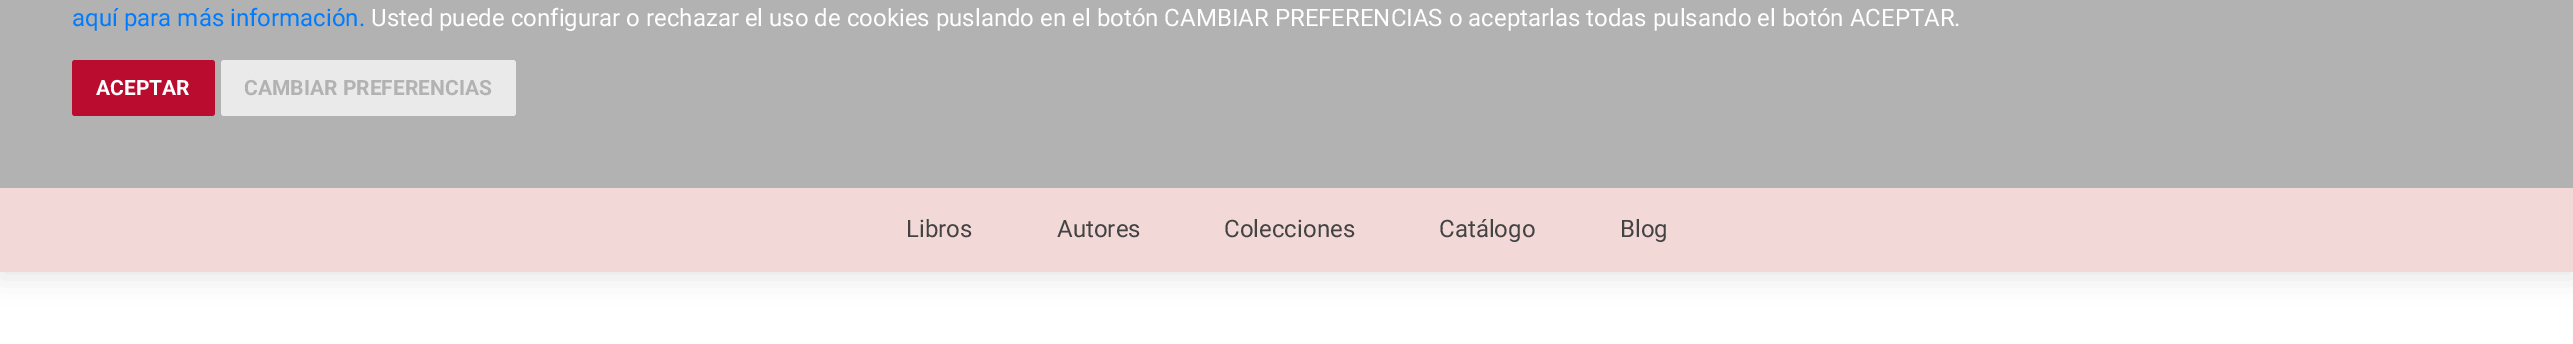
%!PS-Adobe-3.0
%%BoundingBox: 0 0 2573 344
%%LanguageLevel: 3
%%Pages: 1
%%EndComments
%%BeginProlog
/setink { dup -16 bitshift 255 div exch dup -8 bitshift 255 and 255 div exch 255 and 255 div setrgbcolor } def
/usefont { [ exch dup neg 0 0 3 -1 roll 0 0 ] selectfont } def
/setalpha { dup .setfillconstantalpha .setstrokeconstantalpha } def
/rrect { 5 dict begin { /r /h /w /y /x } { exch def } forall
  x r add y moveto x w add y 2 copy h add r arct x w add y h add x 1 index r arct
  x y h add x y r arct x y 2 copy exch w add exch r arct closepath end } def
/softshadow { 12 dict begin { /a /b /q /h /w /y /x } { exch def } forall gsave /was 0 def
  9 -2 -9 { dup b mul 4 div /e exch def 1 sub .425 mul 2.718 exch exp 1 add a .99 .min exch div /now exch def
    1 1 now sub 1 was sub div sub setalpha /was now def
    w h .min e 2 mul add 0 gt { x e sub y e sub w e 2 mul add h e 2 mul add
      q e add b .6 mul add w h .min 2 div e add .min 0 .max rrect fill } if } for grestore end } def
%%EndProlog
%%BeginSetup
<< /PageSize [2573 344] /PageUsesTransparency true >> setpagedevice
%%EndSetup
%%Page: 1 1
0 .pushpdf14devicefilter
0 344 translate 1 -1 scale
4 setmiterlimit
16#FFFFFF setink
0 0 2573 344 rectfill
16#000000 setink
0 6 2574 272 0 13 0.1 softshadow
16#B2B2B2 setink
0 0 2573 188 rectfill
/Roboto-Regular 24 usefont
16#007BFF setink
72 26 moveto (aquí para más información.) show
16#FFFFFF setink
371 26 moveto (Usted puede configurar o rechazar el uso de cookies puslando en el botón CAMBIAR PREFERENCIAS o aceptarlas todas pulsando el botón ACEPTAR.) show
16#BA0C2F setink
72 60 143 56 3 rrect fill
/Roboto-Bold 21 usefont
16#FFFFFF setink
96 95 moveto (ACEPTAR) show
16#EAEAEA setink
221 60 295 56 3 rrect fill
16#B2B2B2 setink
244 95 moveto (CAMBIAR PREFERENCIAS) show
16#F2D9D8 setink
0 188 2573 84 rectfill
/Roboto-Regular 24 usefont
16#434343 setink
[
    [(Libros) 906 237]
    [(Autores) 1057 237]
    [(Colecciones) 1224 237]
    [(Catálogo) 1439 237]
    [(Blog) 1620 237]
] { aload pop moveto show } forall
.poppdf14devicefilter showpage
%%EOF
